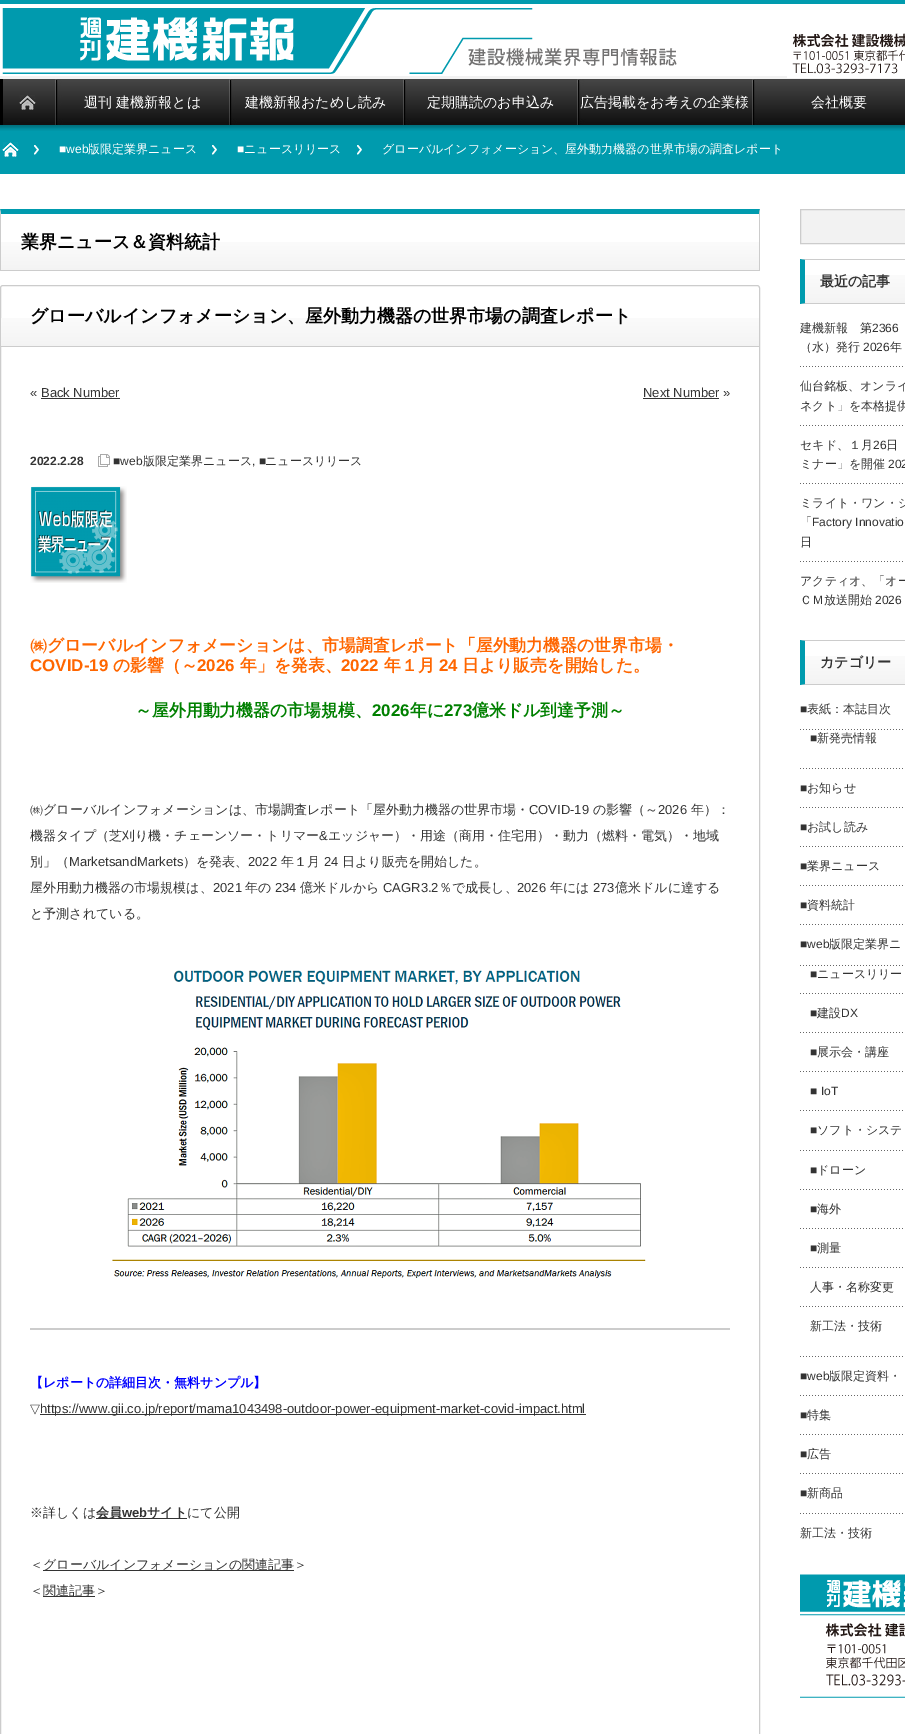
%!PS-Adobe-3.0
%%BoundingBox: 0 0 905 1734
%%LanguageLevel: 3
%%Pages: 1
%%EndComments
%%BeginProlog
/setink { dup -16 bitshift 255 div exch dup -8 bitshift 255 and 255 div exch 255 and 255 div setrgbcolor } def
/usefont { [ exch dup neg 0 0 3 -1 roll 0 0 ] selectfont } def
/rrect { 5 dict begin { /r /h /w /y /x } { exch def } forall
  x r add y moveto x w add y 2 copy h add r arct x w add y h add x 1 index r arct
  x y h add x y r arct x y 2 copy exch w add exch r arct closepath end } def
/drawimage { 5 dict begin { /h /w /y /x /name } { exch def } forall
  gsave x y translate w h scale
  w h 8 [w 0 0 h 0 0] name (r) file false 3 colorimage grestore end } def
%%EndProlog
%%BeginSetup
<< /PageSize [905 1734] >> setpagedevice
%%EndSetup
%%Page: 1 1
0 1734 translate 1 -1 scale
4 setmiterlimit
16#FFFFFF setink
0 0 905 1734 rectfill
(img1.raw) 3 79 52 46 drawimage
16#009BAE setink
0 0 905 4 rectfill
16#F2F2F2 setink
0 76 905 3 rectfill
(img2.raw) 2 8 675 66 drawimage
(img3.raw) 787 33 118 45 drawimage
16#000000 setink
0 79 3 46 rectfill
(img4.raw) 19 95 17 15 drawimage
(img5.raw) 55 79 174 46 drawimage
/WenQuanYiZenHei-Medium 14 usefont
16#FFFFFF setink
84 107 moveto (週刊 建機新報とは) show
(img5.raw) 229 79 174 46 drawimage
245 107 moveto (建機新報おためし読み) show
(img5.raw) 403 79 174 46 drawimage
427 107 moveto (定期購読のお申込み) show
(img6.raw) 577 79 175 46 drawimage
580 107 moveto (広告掲載をお考えの企業様) show
(img7.raw) 752 79 153 46 drawimage
811 107 moveto (会社概要) show
16#009BAE setink
0 125 905 49 rectfill
(img8.raw) 0 125 905 6 drawimage
(img9.raw) 34 145 5 10 drawimage
(img10.raw) 2 142 17 15 drawimage
(img9.raw) 212 145 5 10 drawimage
/LiberationSans-Regular 12 usefont
16#FFFFFF setink
59 153 moveto (■web) show
/WenQuanYiZenHei-Medium 12 usefont
88 153 moveto (版限定業界ニュース) show
(img9.raw) 357 145 5 10 drawimage
/LiberationSans-Regular 12 usefont
237 153 moveto (■) show
/WenQuanYiZenHei-Medium 12 usefont
244 153 moveto (ニュースリリース) show
382 153 moveto (グローバルインフォメーション、屋外動力機器の世界市場の調査レポート) show
(img11.raw) 1 242 758 28 drawimage
16#009BAE setink
0 209 moveto 760 209 lineto 759 214 lineto 1 214 lineto closepath fill
16#CCCCCC setink
760 209 moveto 760 271 lineto 759 270 lineto 759 214 lineto closepath fill
0 270 760 1 rectfill
0 271 moveto 0 209 lineto 1 214 lineto 1 270 lineto closepath fill
/WenQuanYiZenHei-Bold 18 usefont
16#000000 setink
21 248 moveto (業界ニュース＆資料統計) show
16#CCCCCC setink
0.5 285.5 759 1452 2.5 rrect stroke
(img11.raw) 1 318 758 28 drawimage
1 346 758 1 rectfill
16#000000 setink
30 322 moveto (グローバルインフォメーション、屋外動力機器の世界市場の調査レポート) show
/LiberationSans-Regular 13 usefont
16#333333 setink
30 397 moveto (« Back Number) show
41 398 79 1 rectfill
643 397 moveto (Next Number ») show
643 398 76 1 rectfill
/LiberationSans-Bold 12 usefont
30 465 moveto (2022.2.28) show
(img12.raw) 98 454 12 13 drawimage
/LiberationSans-Regular 12 usefont
113 465 moveto (■web) show
/WenQuanYiZenHei-Medium 12 usefont
143 465 moveto (版限定業界ニュース) show
/LiberationSans-Regular 12 usefont
252 465 moveto (, ■) show
/WenQuanYiZenHei-Medium 12 usefont
265 465 moveto (ニュースリリース) show
(img13.raw) 30 486 97 97 drawimage
/WenQuanYiZenHei-Bold 16.9 usefont
16#FF6600 setink
30 651 moveto (㈱グローバルインフォメーションは、市場調査レポート「屋外動力機器の世界市場・) show
/LiberationSans-Bold 16.9 usefont
30 671 moveto (COVID-19) show
/WenQuanYiZenHei-Bold 16.9 usefont
113 671 moveto (の影響（～) show
/LiberationSans-Bold 16.9 usefont
197 671 moveto (2026) show
/WenQuanYiZenHei-Bold 16.9 usefont
240 671 moveto (年」を発表、) show
/LiberationSans-Bold 16.9 usefont
341 671 moveto (2022) show
/WenQuanYiZenHei-Bold 16.9 usefont
384 671 moveto (年１月) show
/LiberationSans-Bold 16.9 usefont
439 671 moveto (24) show
/WenQuanYiZenHei-Bold 16.9 usefont
462 671 moveto (日より販売を開始した。) show
16#008000 setink
135 716 moveto (～屋外用動力機器の市場規模、) show
/LiberationSans-Bold 16.9 usefont
372 716 moveto (2026) show
/WenQuanYiZenHei-Bold 16.9 usefont
410 716 moveto (年に) show
/LiberationSans-Bold 16.9 usefont
444 716 moveto (273) show
/WenQuanYiZenHei-Bold 16.9 usefont
472 716 moveto (億米ドル到達予測～) show
/WenQuanYiZenHei-Medium 13 usefont
16#333333 setink
30 814 moveto (㈱グローバルインフォメーションは、市場調査レポート「屋外動力機器の世界市場・) show
/LiberationSans-Regular 13 usefont
529 814 moveto (COVID-19) show
/WenQuanYiZenHei-Medium 13 usefont
593 814 moveto (の影響（～) show
/LiberationSans-Regular 13 usefont
658 814 moveto (2026) show
/WenQuanYiZenHei-Medium 13 usefont
691 814 moveto (年）：) show
30 840 moveto (機器タイプ（芝刈り機・チェーンソー・トリマー) show
/LiberationSans-Regular 13 usefont
319 840 moveto (&) show
/WenQuanYiZenHei-Medium 13 usefont
328 840 moveto (エッジャー）・用途（商用・住宅用）・動力（燃料・電気）・地域) show
30 866 moveto (別」（) show
/LiberationSans-Regular 13 usefont
69 866 moveto (MarketsandMarkets) show
/WenQuanYiZenHei-Medium 13 usefont
183 866 moveto (）を発表、) show
/LiberationSans-Regular 13 usefont
248 866 moveto (2022) show
/WenQuanYiZenHei-Medium 13 usefont
281 866 moveto (年１月) show
/LiberationSans-Regular 13 usefont
324 866 moveto (24) show
/WenQuanYiZenHei-Medium 13 usefont
342 866 moveto (日より販売を開始した。) show
30 892 moveto (屋外用動力機器の市場規模は、) show
/LiberationSans-Regular 13 usefont
213 892 moveto (2021) show
/WenQuanYiZenHei-Medium 13 usefont
245 892 moveto (年の) show
/LiberationSans-Regular 13 usefont
275 892 moveto (234) show
/WenQuanYiZenHei-Medium 13 usefont
300 892 moveto (億米ドルから) show
/LiberationSans-Regular 13 usefont
383 892 moveto (CAGR3.2) show
/WenQuanYiZenHei-Medium 13 usefont
439 892 moveto (％で成長し、) show
/LiberationSans-Regular 13 usefont
517 892 moveto (2026) show
/WenQuanYiZenHei-Medium 13 usefont
550 892 moveto (年には) show
/LiberationSans-Regular 13 usefont
593 892 moveto (273) show
/WenQuanYiZenHei-Medium 13 usefont
615 892 moveto (億米ドルに達する) show
30 918 moveto (と予測されている。) show
(img14.raw) 112 970 534 309 drawimage
16#CCCCCC setink
30 1328 700 2 rectfill
/WenQuanYiZenHei-Bold 13 usefont
16#0000FF setink
30 1387 moveto (【レポートの詳細目次・無料サンプル】) show
/DejaVuSans-Regular 13 usefont
16#333333 setink
30 1413 moveto (▽) show
40 1414 546 1 rectfill
/LiberationSans-Regular 13 usefont
40 1413 moveto (https://www.gii.co.jp/report/mama1043498-outdoor-power-equipment-market-covid-impact.html) show
/WenQuanYiZenHei-Medium 13 usefont
30 1517 moveto (※詳しくは) show
96 1518 91 1 rectfill
/WenQuanYiZenHei-Bold 13 usefont
96 1517 moveto (会員) show
/LiberationSans-Bold 13 usefont
122 1517 moveto (web) show
/WenQuanYiZenHei-Bold 13 usefont
147 1517 moveto (サイト) show
/WenQuanYiZenHei-Medium 13 usefont
187 1517 moveto (にて公開) show
30 1569 moveto (＜) show
43 1570 251 1 rectfill
43 1569 moveto (グローバルインフォメーションの関連記事＞) show
30 1595 moveto (＜) show
43 1596 52 1 rectfill
43 1595 moveto (関連記事＞) show
16#F2F2F2 setink
800.5 209.5 moveto 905.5 209.5 lineto 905.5 243.5 lineto 800.5 243.5 lineto closepath gsave fill grestore
16#CCCCCC setink
stroke
(img15.raw) 805 275 100 28 drawimage
800 259 moveto 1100 259 lineto 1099 260 lineto 805 260 lineto closepath fill
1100 304 moveto 800 304 lineto 805 303 lineto 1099 303 lineto closepath fill
16#009BAE setink
800 304 moveto 800 259 lineto 805 260 lineto 805 303 lineto closepath fill
/WenQuanYiZenHei-Bold 14 usefont
16#333333 setink
820 286 moveto (最近の記事) show
(img16.raw) 800 366 103 1 drawimage
/WenQuanYiZenHei-Medium 12 usefont
800 332 moveto (建機新報　第) show
/LiberationSans-Regular 12 usefont
872 332 moveto (2366) show
/WenQuanYiZenHei-Medium 12 usefont
800 351 moveto (（水）発行) show
/LiberationSans-Regular 12 usefont
863 351 moveto (2026) show
/WenQuanYiZenHei-Medium 12 usefont
890 351 moveto (年) show
(img16.raw) 800 425 103 1 drawimage
800 390 moveto (仙台銘板、オンライ) show
800 410 moveto (ネクト」を本格提供) show
(img16.raw) 800 483 103 1 drawimage
800 449 moveto (セキド、１月) show
/LiberationSans-Regular 12 usefont
873 449 moveto (26) show
/WenQuanYiZenHei-Medium 12 usefont
886 449 moveto (日) show
800 468 moveto (ミナー」を開催) show
/LiberationSans-Regular 12 usefont
888 468 moveto (202) show
(img16.raw) 800 561 103 1 drawimage
/WenQuanYiZenHei-Medium 12 usefont
800 507 moveto (ミライト・ワン・シ) show
800 526 moveto (「) show
/LiberationSans-Regular 12 usefont
812 526 moveto (Factory Innovatio) show
/WenQuanYiZenHei-Medium 12 usefont
[
    [(日) 800 546]
    [(アクティオ、「オー) 800 585]
    [(ＣＭ放送開始) 800 604]
] { aload pop moveto show } forall
/LiberationSans-Regular 12 usefont
875 604 moveto (2026) show
(img15.raw) 805 656 100 28 drawimage
16#CCCCCC setink
800 640 moveto 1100 640 lineto 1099 641 lineto 805 641 lineto closepath fill
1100 685 moveto 800 685 lineto 805 684 lineto 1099 684 lineto closepath fill
16#009BAE setink
800 685 moveto 800 640 lineto 805 641 lineto 805 684 lineto closepath fill
/WenQuanYiZenHei-Bold 14 usefont
16#333333 setink
820 667 moveto (カテゴリー) show
(img16.raw) 800 768 103 1 drawimage
/LiberationSans-Regular 12 usefont
800 713 moveto (■) show
/WenQuanYiZenHei-Medium 12 usefont
807 713 moveto (表紙：本誌目次) show
(img16.raw) 800 729 103 1 drawimage
/LiberationSans-Regular 12 usefont
810 742 moveto (■) show
/WenQuanYiZenHei-Medium 12 usefont
817 742 moveto (新発売情報) show
(img16.raw) 800 807 103 1 drawimage
/LiberationSans-Regular 12 usefont
800 792 moveto (■) show
/WenQuanYiZenHei-Medium 12 usefont
807 792 moveto (お知らせ) show
(img16.raw) 800 846 103 1 drawimage
/LiberationSans-Regular 12 usefont
800 831 moveto (■) show
/WenQuanYiZenHei-Medium 12 usefont
807 831 moveto (お試し読み) show
(img16.raw) 800 885 103 1 drawimage
/LiberationSans-Regular 12 usefont
800 870 moveto (■) show
/WenQuanYiZenHei-Medium 12 usefont
807 870 moveto (業界ニュース) show
(img16.raw) 800 924 103 1 drawimage
/LiberationSans-Regular 12 usefont
800 909 moveto (■) show
/WenQuanYiZenHei-Medium 12 usefont
807 909 moveto (資料統計) show
(img16.raw) 800 1356 103 1 drawimage
/LiberationSans-Regular 12 usefont
800 948 moveto (■web) show
/WenQuanYiZenHei-Medium 12 usefont
829 948 moveto (版限定業界ニ) show
(img16.raw) 800 965 103 1 drawimage
(img16.raw) 800 993 103 1 drawimage
/LiberationSans-Regular 12 usefont
810 978 moveto (■) show
/WenQuanYiZenHei-Medium 12 usefont
817 978 moveto (ニュースリリー) show
(img16.raw) 800 1032 103 1 drawimage
/LiberationSans-Regular 12 usefont
810 1017 moveto (■) show
/WenQuanYiZenHei-Medium 12 usefont
817 1017 moveto (建設) show
/LiberationSans-Regular 12 usefont
841 1017 moveto (DX) show
(img16.raw) 800 1071 103 1 drawimage
810 1056 moveto (■) show
/WenQuanYiZenHei-Medium 12 usefont
817 1056 moveto (展示会・講座) show
(img16.raw) 800 1110 103 1 drawimage
/LiberationSans-Regular 12 usefont
810 1095 moveto (■ IoT) show
(img16.raw) 800 1150 103 1 drawimage
810 1134 moveto (■) show
/WenQuanYiZenHei-Medium 12 usefont
817 1134 moveto (ソフト・システ) show
(img16.raw) 800 1189 103 1 drawimage
/LiberationSans-Regular 12 usefont
810 1174 moveto (■) show
/WenQuanYiZenHei-Medium 12 usefont
817 1174 moveto (ドローン) show
(img16.raw) 800 1228 103 1 drawimage
/LiberationSans-Regular 12 usefont
810 1213 moveto (■) show
/WenQuanYiZenHei-Medium 12 usefont
817 1213 moveto (海外) show
(img16.raw) 800 1267 103 1 drawimage
/LiberationSans-Regular 12 usefont
810 1252 moveto (■) show
/WenQuanYiZenHei-Medium 12 usefont
817 1252 moveto (測量) show
(img16.raw) 800 1306 103 1 drawimage
810 1291 moveto (人事・名称変更) show
810 1330 moveto (新工法・技術) show
(img16.raw) 800 1395 103 1 drawimage
/LiberationSans-Regular 12 usefont
800 1380 moveto (■web) show
/WenQuanYiZenHei-Medium 12 usefont
829 1380 moveto (版限定資料・) show
(img16.raw) 800 1434 103 1 drawimage
/LiberationSans-Regular 12 usefont
800 1419 moveto (■) show
/WenQuanYiZenHei-Medium 12 usefont
807 1419 moveto (特集) show
(img16.raw) 800 1473 103 1 drawimage
/LiberationSans-Regular 12 usefont
800 1458 moveto (■) show
/WenQuanYiZenHei-Medium 12 usefont
807 1458 moveto (広告) show
(img16.raw) 800 1513 103 1 drawimage
/LiberationSans-Regular 12 usefont
800 1497 moveto (■) show
/WenQuanYiZenHei-Medium 12 usefont
807 1497 moveto (新商品) show
800 1537 moveto (新工法・技術) show
(img17.raw) 800 1574 105 124 drawimage
showpage
%%EOF
